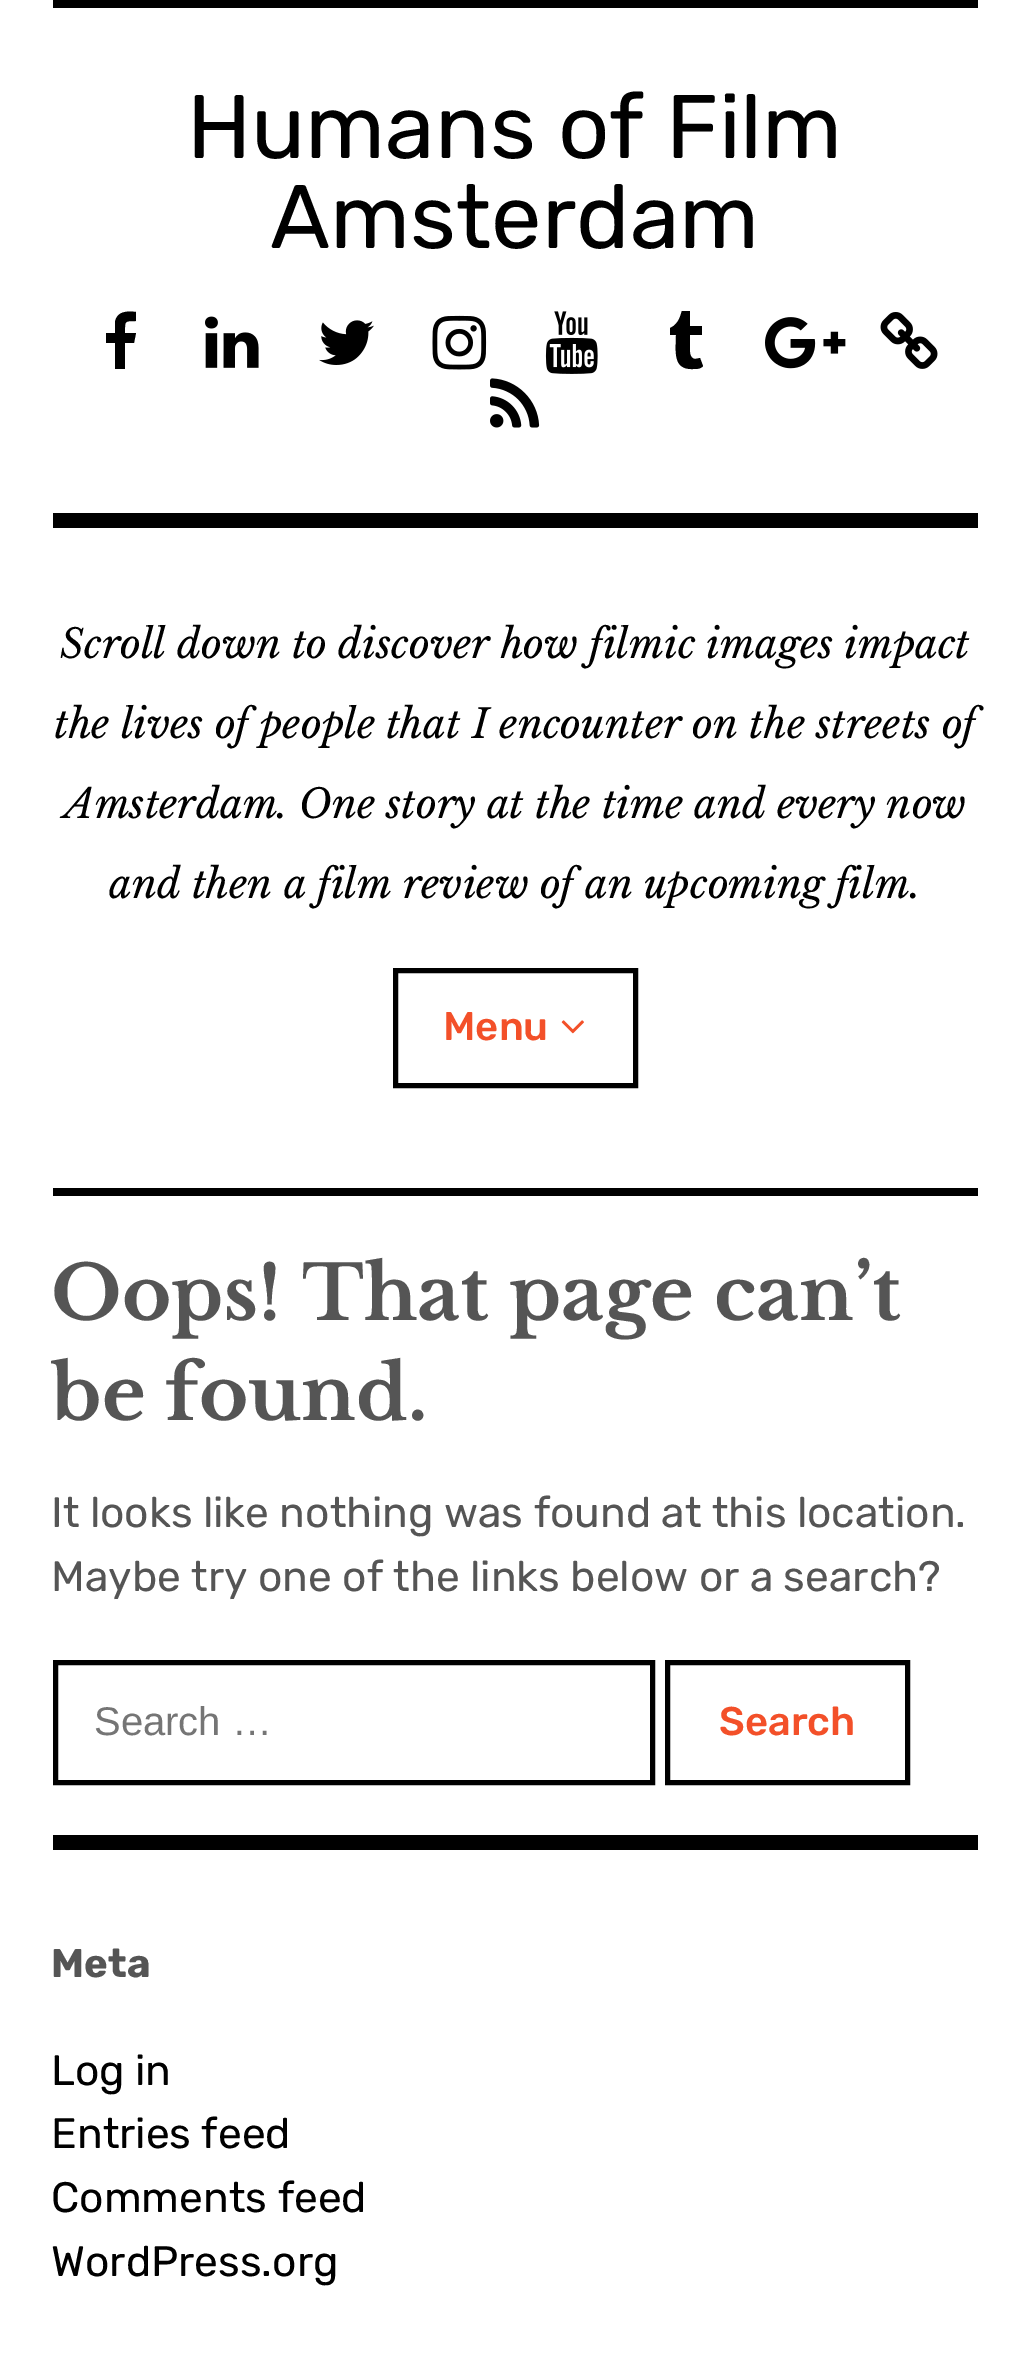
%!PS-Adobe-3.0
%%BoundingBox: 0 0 1030 2375
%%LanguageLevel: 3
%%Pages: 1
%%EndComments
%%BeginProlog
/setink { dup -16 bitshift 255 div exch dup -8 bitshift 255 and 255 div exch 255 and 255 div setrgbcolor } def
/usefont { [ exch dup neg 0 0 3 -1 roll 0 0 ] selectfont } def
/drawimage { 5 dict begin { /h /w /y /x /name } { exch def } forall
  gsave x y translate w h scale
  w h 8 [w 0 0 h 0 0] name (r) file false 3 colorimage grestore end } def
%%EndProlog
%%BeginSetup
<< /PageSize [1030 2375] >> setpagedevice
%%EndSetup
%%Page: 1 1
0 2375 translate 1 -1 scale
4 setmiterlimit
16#FFFFFF setink
0 0 1030 2375 rectfill
16#000000 setink
53 0 925 8 rectfill
53 513 925 15 rectfill
/Rubik-Regular 90 usefont
187 158 moveto (Humans of Film) show
270 248 moveto (Amsterdam) show
136 312 moveto 136 321 lineto 124 321 125 321 125 333 curveto 136 333 lineto 134 343 lineto 125 343 lineto 125 369 lineto 115 369 lineto 115 343 lineto 106 343 lineto 106 333 lineto 115 333 lineto 115 322 lineto 117 311 127 311 136 312 curveto closepath fill
(img1.raw) 205 316 54 52 drawimage
(img2.raw) 319 320 55 45 drawimage
(img3.raw) 432 315 55 55 drawimage
(img4.raw) 545 311 53 63 drawimage
700 358 moveto 703 366 lineto 701 369 696 369 693 369 curveto 672 370 676 350 676 335 curveto 670 335 lineto 670 328 lineto 680 324 681 312 682 311 curveto 690 311 lineto 690 326 lineto 702 326 lineto 702 335 lineto 690 335 lineto 690 347 lineto 690 351 689 358 695 359 curveto closepath fill
(img5.raw) 765 317 81 52 drawimage
(img6.raw) 880 312 58 57 drawimage
(img7.raw) 490 378 50 50 drawimage
/LibreBaskerville-Italic 40 usefont
[
    [(Scroll down to discover how filmic images impact) 60 658]
    [(the lives of people that I encounter on the streets of) 54 738]
    [(Amsterdam. One story at the time and every now) 64 818]
    [(and then a film review of an upcoming film.) 109 898]
] { aload pop moveto show } forall
5 setlinewidth
395.5 970.5 240 115 rectstroke
/Rubik-Medium 40 usefont
16#F35029 setink
443 1040 moveto (Menu) show
(img8.raw) 561 1020 23 14 drawimage
16#000000 setink
53 1188 925 8 rectfill
/LibreBaskerville-Bold 75 usefont
16#555555 setink
51 1320 moveto (Oops! That page can’t) show
51 1420 moveto (be found.) show
/Rubik-Regular 42.5 usefont
51 1527 moveto (It looks like nothing was found at this location.) show
51 1591 moveto (Maybe try one of the links below or a search?) show
16#000000 setink
55.5 1662.5 597 120 rectstroke
/LiberationSans-Regular 40 usefont
16#757575 setink
94 1735 moveto (Search …) show
16#000000 setink
667.5 1662.5 240 120 rectstroke
/Rubik-Medium 40 usefont
16#F35029 setink
719 1735 moveto (Search) show
16#000000 setink
53 1835 925 15 rectfill
/Rubik-Bold 40 usefont
16#555555 setink
51 1977 moveto (Meta) show
/Rubik-Regular 42.5 usefont
16#000000 setink
[
    [(Log in) 51 2085]
    [(Entries feed) 51 2148]
    [(Comments feed) 51 2212]
    [(WordPress.org) 51 2276]
] { aload pop moveto show } forall
showpage
%%EOF
